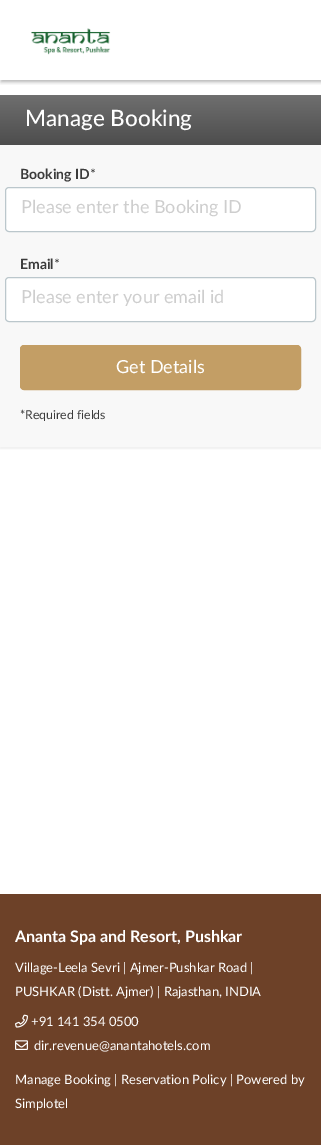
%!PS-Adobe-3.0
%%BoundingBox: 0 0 321 1145
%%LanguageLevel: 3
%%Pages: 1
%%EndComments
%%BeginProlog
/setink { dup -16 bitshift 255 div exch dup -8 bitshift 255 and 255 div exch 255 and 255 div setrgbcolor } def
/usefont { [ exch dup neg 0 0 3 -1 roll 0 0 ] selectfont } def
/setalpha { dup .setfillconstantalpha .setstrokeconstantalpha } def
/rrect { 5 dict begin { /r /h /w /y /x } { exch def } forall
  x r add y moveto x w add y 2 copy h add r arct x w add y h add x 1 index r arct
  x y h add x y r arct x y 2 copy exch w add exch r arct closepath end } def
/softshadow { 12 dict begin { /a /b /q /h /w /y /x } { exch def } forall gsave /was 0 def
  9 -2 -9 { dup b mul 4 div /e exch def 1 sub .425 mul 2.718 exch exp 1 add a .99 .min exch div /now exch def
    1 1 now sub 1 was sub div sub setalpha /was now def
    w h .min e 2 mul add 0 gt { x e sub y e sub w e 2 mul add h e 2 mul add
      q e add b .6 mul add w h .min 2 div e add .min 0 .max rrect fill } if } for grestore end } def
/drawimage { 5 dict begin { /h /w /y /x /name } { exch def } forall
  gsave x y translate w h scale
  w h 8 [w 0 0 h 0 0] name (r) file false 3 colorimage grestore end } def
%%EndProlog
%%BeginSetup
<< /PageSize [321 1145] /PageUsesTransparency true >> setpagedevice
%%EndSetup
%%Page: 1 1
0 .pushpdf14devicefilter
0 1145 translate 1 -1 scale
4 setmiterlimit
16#FFFFFF setink
0 0 321 1145 rectfill
gsave
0 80 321 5 rectclip
16#000000 setink
1 2 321 80 0 2 0.3 softshadow
grestore
(img1.raw) 31 28 80 27 drawimage
16#000000 setink
0 96 321 353 0 0.5 0.05 softshadow
gsave 0 95 moveto 321 95 lineto 321 145 lineto 0 145 lineto closepath clip newpath
<< /ShadingType 2 /ColorSpace /DeviceRGB /Coords [161 145 161 95] /Extend [true true] /Function << /FunctionType 2 /Domain [0 1] /C0 [0.302 0.302 0.302] /C1 [0.435 0.435 0.435] /N 1 >> >> shfill grestore
/Lato-Medium 22.5 usefont
16#FFFFFF setink
25 126 moveto (Manage Booking) show
16#F8F8F8 setink
0 145 321 302 rectfill
/Lato-Bold 14 usefont
16#3B3B3B setink
20 179 moveto (Booking ID) show
/Lato-Regular 14 usefont
90 179 moveto (*) show
16#FFFFFF setink
5.5 187.5 310 44 3.5 rrect gsave fill grestore
16#BBC7CC setink
stroke
/Lato-Regular 18 usefont
16#CECECE setink
21 213 moveto (Please enter the Booking ID) show
/Lato-Bold 14 usefont
16#3B3B3B setink
20 269 moveto (Email) show
/Lato-Regular 14 usefont
54 269 moveto (*) show
16#FFFFFF setink
5.5 277.5 310 44 3.5 rrect gsave fill grestore
16#BBC7CC setink
stroke
/Lato-Regular 18 usefont
16#CECECE setink
21 303 moveto (Please enter your email id) show
16#C39E65 setink
20.5 345.5 280 44 3.5 rrect gsave fill grestore
stroke
16#FFFFFF setink
116 373 moveto (Get Details) show
/Lato-Regular 12.25 usefont
16#3B3B3B setink
20 419 moveto (*Required fields) show
16#6D4128 setink
0 894 321 251 rectfill
/Lato-Bold 16 usefont
16#FFFFFF setink
15 942 moveto (Ananta Spa and Resort, Pushkar) show
/Lato-Regular 13 usefont
15 972 moveto (Village-Leela Sevri | Ajmer-Pushkar Road |) show
15 996 moveto (PUSHKAR \(Distt. Ajmer\) | Rajasthan, INDIA) show
(img2.raw) 15 1014 13 14 drawimage
31 1026 moveto (+91 141 354 0500) show
(img3.raw) 15 1040 13 10 drawimage
[
    [(dir.revenue@anantahotels.com) 34 1050]
    [(Manage Booking | Reservation Policy | Powered by) 15 1084]
    [(Simplotel) 15 1108]
] { aload pop moveto show } forall
.poppdf14devicefilter showpage
%%EOF
